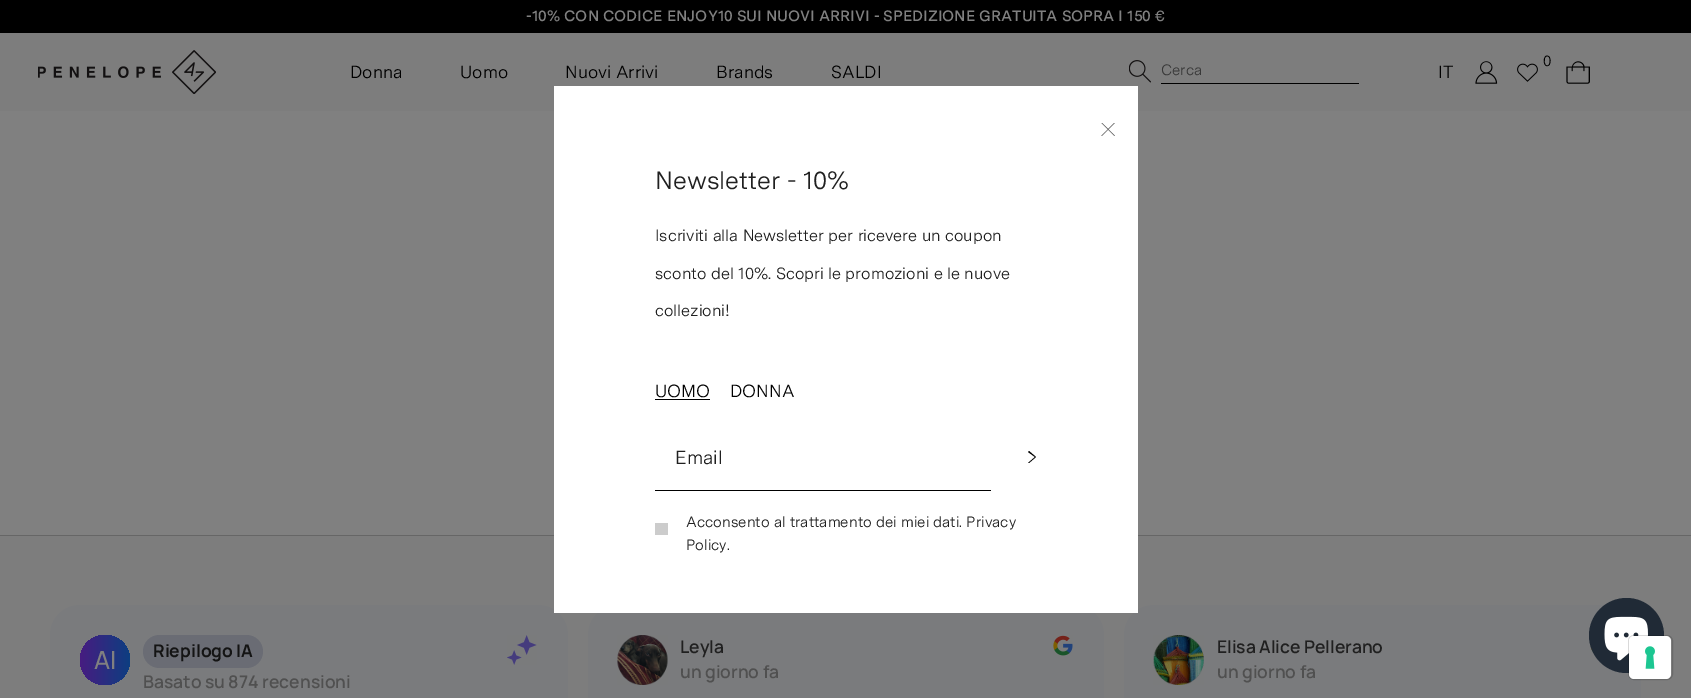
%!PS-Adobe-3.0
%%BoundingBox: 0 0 1691 698
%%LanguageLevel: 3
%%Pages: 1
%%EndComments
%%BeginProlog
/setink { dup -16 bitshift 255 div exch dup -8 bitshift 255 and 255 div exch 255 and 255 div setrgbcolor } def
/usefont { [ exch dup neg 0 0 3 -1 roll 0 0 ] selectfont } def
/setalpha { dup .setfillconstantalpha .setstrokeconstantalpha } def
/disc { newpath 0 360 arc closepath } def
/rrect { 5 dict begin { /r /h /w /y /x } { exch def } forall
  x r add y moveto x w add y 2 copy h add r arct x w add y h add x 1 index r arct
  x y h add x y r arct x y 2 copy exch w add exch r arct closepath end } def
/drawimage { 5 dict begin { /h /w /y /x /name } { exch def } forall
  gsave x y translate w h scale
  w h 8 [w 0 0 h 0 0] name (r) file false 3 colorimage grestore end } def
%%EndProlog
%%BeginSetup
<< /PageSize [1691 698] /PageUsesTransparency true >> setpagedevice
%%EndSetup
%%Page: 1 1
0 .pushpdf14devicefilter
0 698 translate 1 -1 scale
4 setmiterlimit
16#808080 setink
0 0 1691 698 rectfill
16#7D7D7D setink
0 33 1691 78 rectfill
16#000000 setink
0 0 1691 33 rectfill
/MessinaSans-SemiBold 15 usefont
16#808080 setink
526 21 moveto (-10% CON CODICE ENJOY10 SUI NUOVI ARRIVI - SPEDIZIONE GRATUITA SOPRA I 150 €) show
(img1.raw) 38 50 178 44 drawimage
/MessinaSans-Regular 17.5 usefont
16#000000 setink
[
    [(Donna) 350 78]
    [(Uomo) 460 78]
    [(Nuovi Arrivi) 565 78]
    [(Brands) 716 78]
    [(SALDI) 831 78]
] { aload pop moveto show } forall
(img2.raw) 1129 60 22 23 drawimage
1161 83 198 1 rectfill
/MessinaSans-Regular 15 usefont
16#383838 setink
1161 75 moveto (Cerca) show
/MessinaSans-Regular 17.5 usefont
16#000000 setink
1438 78 moveto (IT) show
(img3.raw) 1475 61 23 23 drawimage
/MessinaSans-Regular 15 usefont
1543 66 moveto (0) show
(img4.raw) 1517 63 21 19 drawimage
(img5.raw) 1566 61 24 23 drawimage
16#666666 setink
0 535 1691 1 rectfill
16#7D7D7D setink
0 536 1691 162 rectfill
16#7A7B7D setink
50 605 518 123 30 rrect fill
588 605 516 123 30 rrect fill
1124 605 517 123 30 rrect fill
16#FFFFFF setink
554 86 584 527 rectfill
(img6.raw) 1101 123 14 13 drawimage
/MessinaSans-Regular 25 usefont
16#202020 setink
655 189 moveto (Newsletter - 10%) show
/MessinaSans-Regular 16.25 usefont
[
    [(Iscriviti alla Newsletter per ricevere un coupon) 655 241]
    [(sconto del 10%. Scopri le promozioni e le nuove) 655 279]
    [(collezioni!) 655 316]
] { aload pop moveto show } forall
/MessinaSans-Regular 17.5 usefont
16#000000 setink
655 397 moveto (UOMO) show
655 399 55 1 rectfill
730 397 moveto (DONNA) show
655 490 336 1 rectfill
/MessinaSans-Regular 19 usefont
16#202020 setink
675 464 moveto (Email) show
16#000000 setink
1029 451 moveto 1028 452 lineto 1035 457 lineto 991 457 lineto 1035 457 lineto 1028 463 lineto 1029 463 lineto 1036 457 lineto closepath fill
16#CCCCCC setink
655 523 13 12 rectfill
/MessinaSans-Regular 15 usefont
16#202020 setink
686 527 moveto (Acconsento al trattamento dei miei dati. Privacy) show
686 550 moveto (Policy.) show
gsave 105 660 25 disc clip newpath
<< /ShadingType 2 /ColorSpace /DeviceRGB /Coords [80 660 130 660] /Extend [true true] /Function << /FunctionType 2 /Domain [0 1] /C0 [0.278 0.11 0.502] /C1 [0.051 0.243 0.502] /N 1 >> >> shfill grestore
/Manrope-Medium 25 usefont
16#808080 setink
94 669 moveto (AI) show
16#6A6C74 setink
143 635 120 33 16.5 rrect fill
/Manrope-Bold 17.5 usefont
16#141414 setink
153 657 moveto (Riepilogo IA) show
/Manrope-SemiBold 17.5 usefont
16#505050 setink
143 688 moveto (Basato su 874 recensioni) show
(img7.raw) 507 635 30 30 drawimage
(img8.raw) 617 635 51 50 drawimage
16#202020 setink
680 653 moveto (Leyla) show
16#505050 setink
680 678 moveto (un giorno fa) show
(img9.raw) 1053 635 20 21 drawimage
(img10.raw) 1153 635 51 50 drawimage
16#202020 setink
1217 653 moveto (Elisa Alice Pellerano) show
16#505050 setink
1217 678 moveto (un giorno fa) show
(img11.raw) 1590 644 4 9 drawimage
16#202A36 setink
1626.5 635.5 37.5 disc fill
(img12.raw) 1604 616 44 45 drawimage
0.15 setalpha
16#000000 setink
1628.5 635.5 44 44 5.5 rrect stroke
1 setalpha
16#FFFFFF setink
1629 636 42 43 5 rrect fill
(img13.raw) 1645 646 10 23 drawimage
.poppdf14devicefilter showpage
%%EOF
